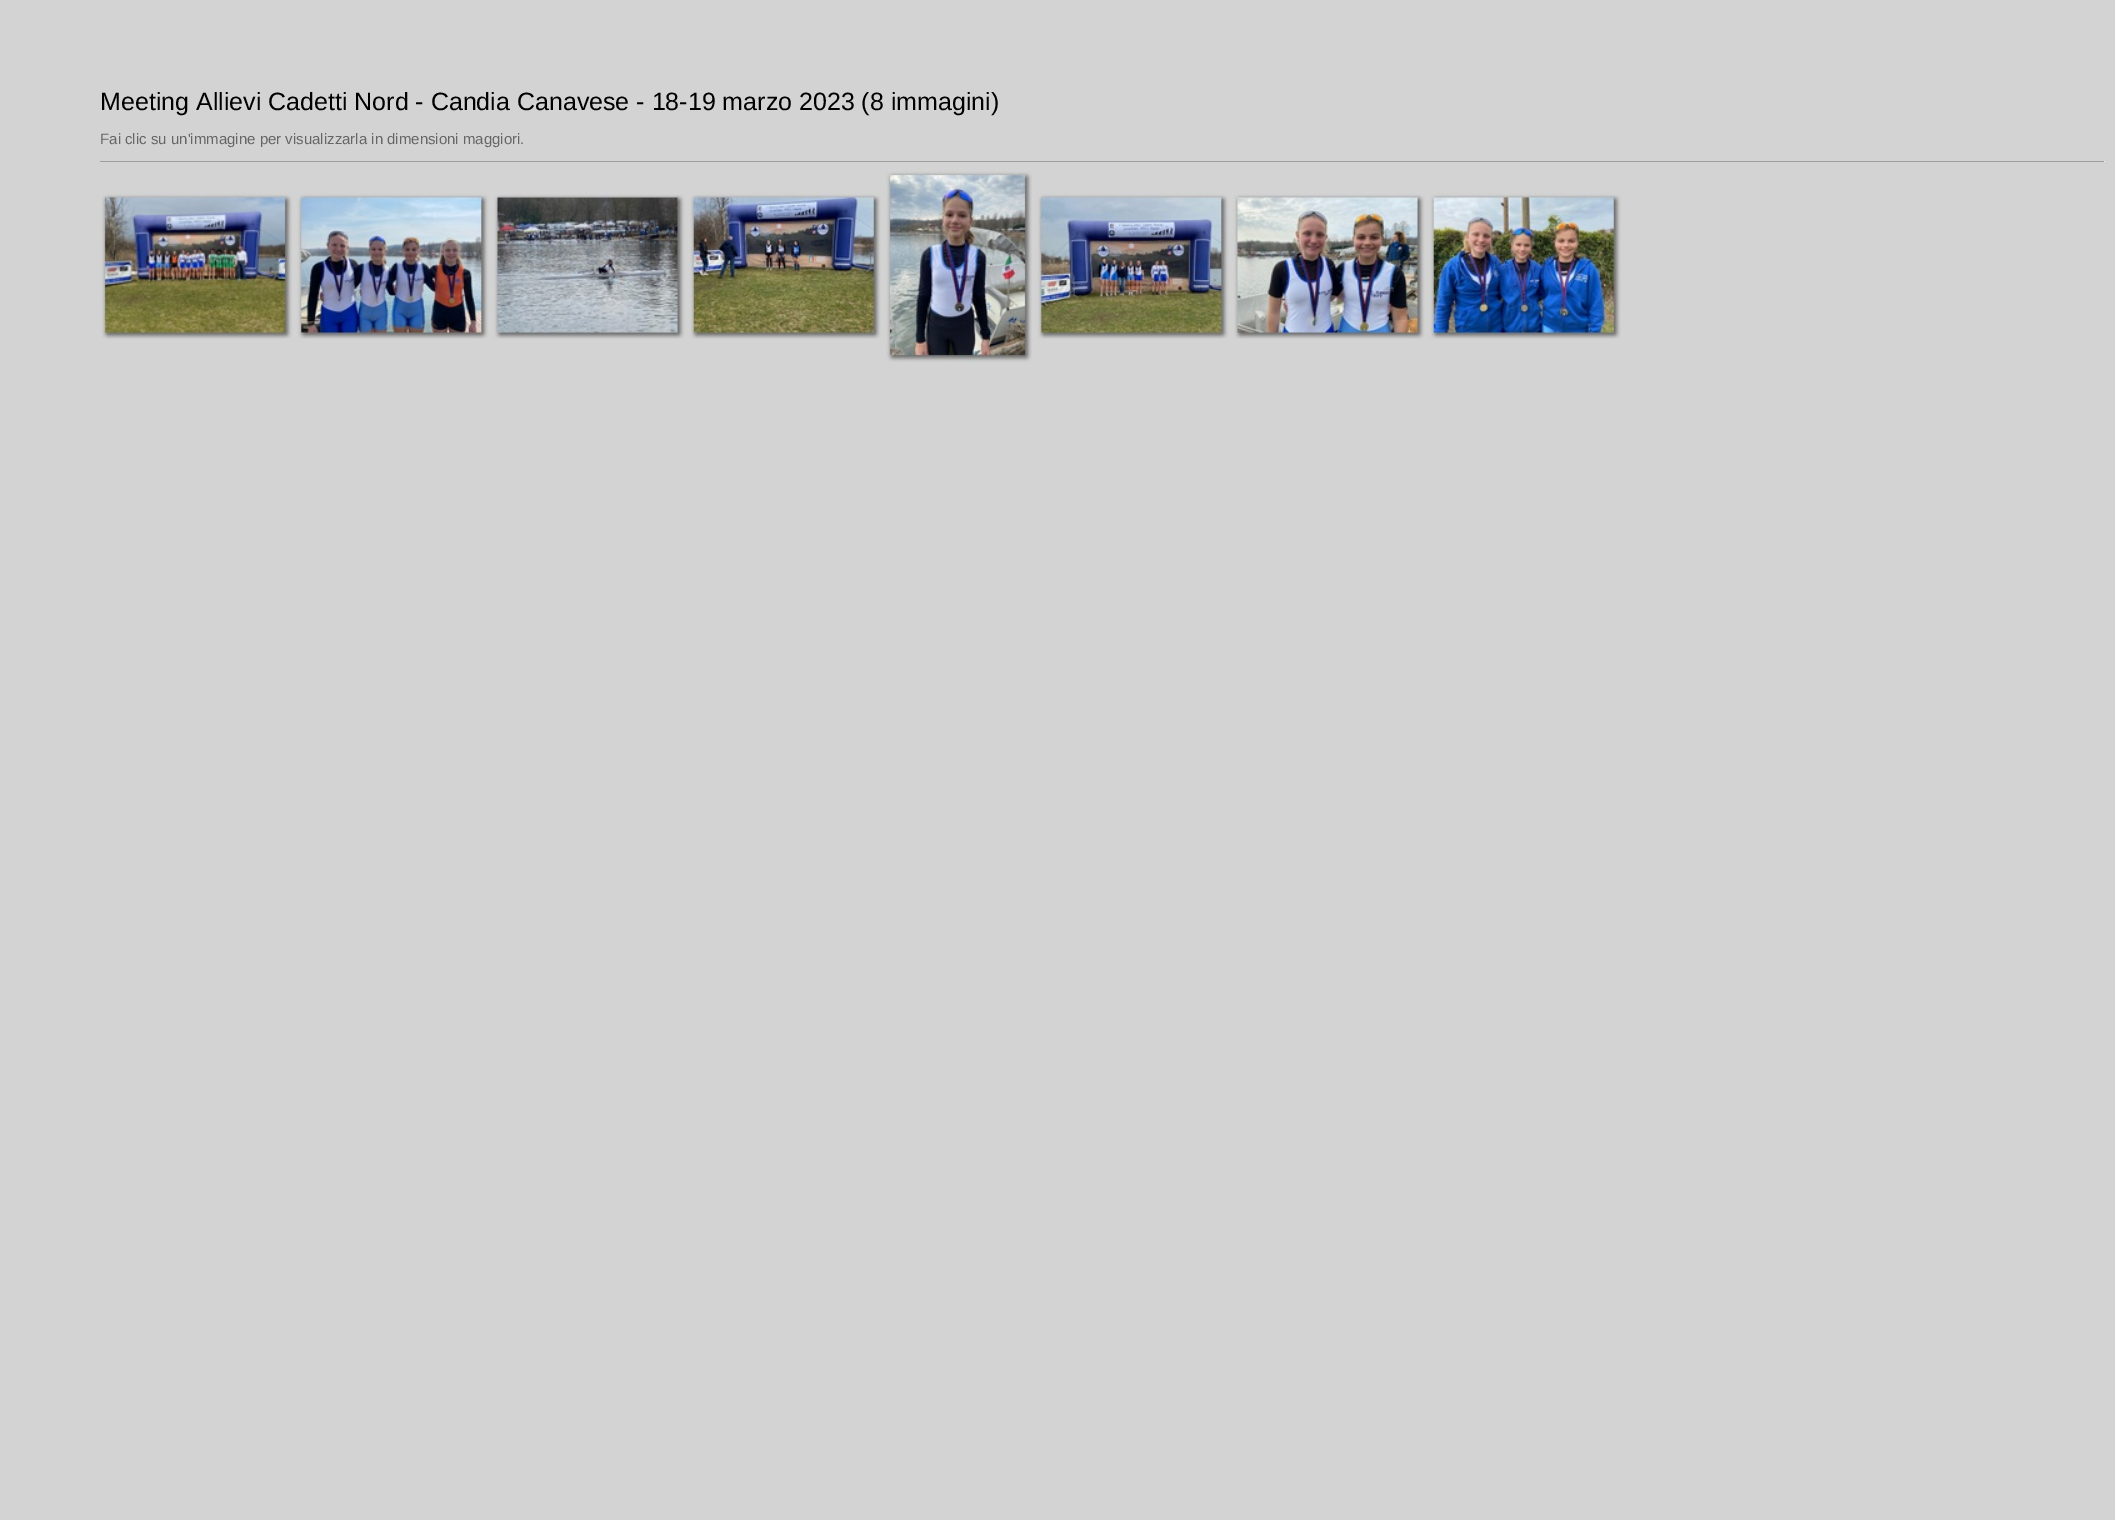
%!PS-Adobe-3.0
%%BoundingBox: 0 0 2115 1520
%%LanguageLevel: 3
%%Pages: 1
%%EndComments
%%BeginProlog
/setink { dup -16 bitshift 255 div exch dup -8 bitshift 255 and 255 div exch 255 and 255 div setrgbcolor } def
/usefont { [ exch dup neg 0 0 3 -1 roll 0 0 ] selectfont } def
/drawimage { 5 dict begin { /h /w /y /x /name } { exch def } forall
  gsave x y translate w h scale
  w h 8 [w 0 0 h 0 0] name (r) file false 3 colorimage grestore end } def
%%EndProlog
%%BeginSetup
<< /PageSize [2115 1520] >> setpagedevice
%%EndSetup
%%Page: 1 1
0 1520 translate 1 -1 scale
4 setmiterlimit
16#D3D3D3 setink
0 0 2115 1520 rectfill
/LiberationSans-Regular 25 usefont
16#000000 setink
100 110 moveto (Meeting Allievi Cadetti Nord - Candia Canavese - 18-19 marzo 2023 \(8 immagini\)) show
/LiberationSans-Regular 15 usefont
16#666666 setink
100 144 moveto (Fai clic su un'immagine per visualizzarla in dimensioni maggiori.) show
16#9F9F9F setink
100 161 2005 1 rectfill
16#EEEEEE setink
2104 161 1 1 rectfill
(img1.raw) 100 192 193 147 drawimage
(img2.raw) 296 193 193 146 drawimage
(img3.raw) 492 194 193 145 drawimage
(img4.raw) 689 192 192 147 drawimage
(img5.raw) 885 170 147 193 drawimage
(img6.raw) 1036 193 193 146 drawimage
(img7.raw) 1233 194 192 145 drawimage
(img8.raw) 1429 192 192 147 drawimage
showpage
%%EOF
